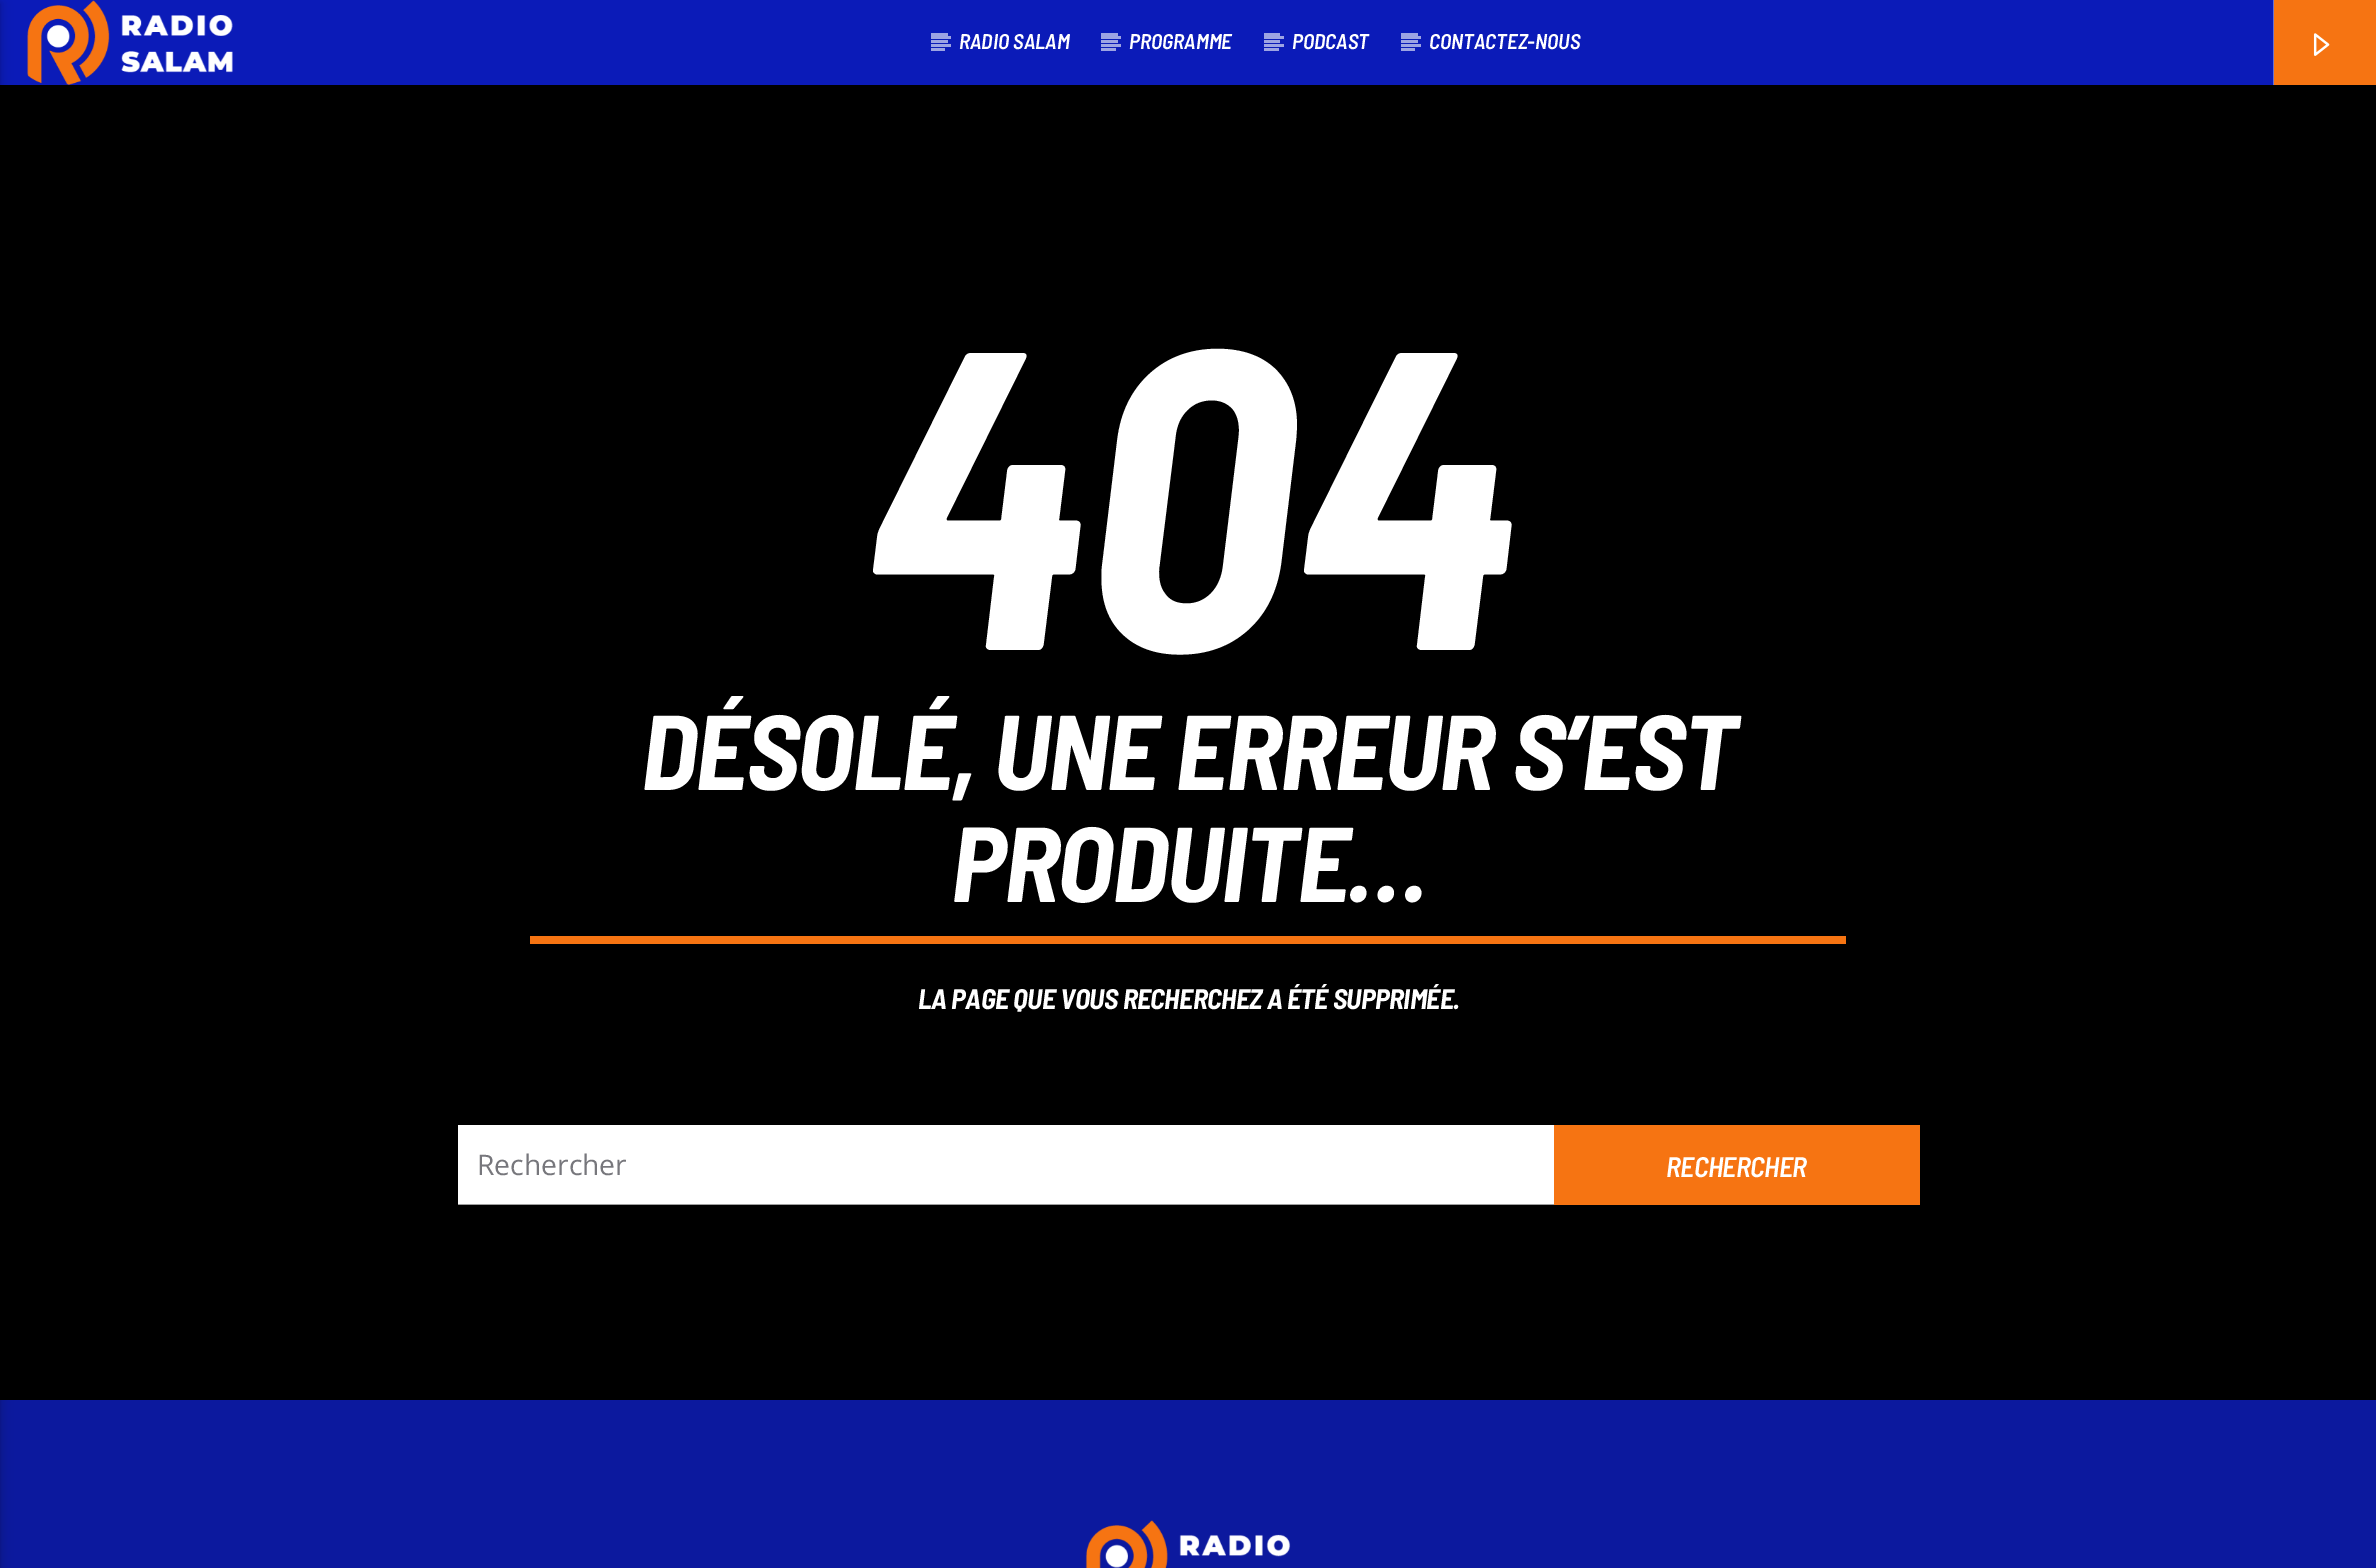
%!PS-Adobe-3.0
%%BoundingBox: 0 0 2376 1568
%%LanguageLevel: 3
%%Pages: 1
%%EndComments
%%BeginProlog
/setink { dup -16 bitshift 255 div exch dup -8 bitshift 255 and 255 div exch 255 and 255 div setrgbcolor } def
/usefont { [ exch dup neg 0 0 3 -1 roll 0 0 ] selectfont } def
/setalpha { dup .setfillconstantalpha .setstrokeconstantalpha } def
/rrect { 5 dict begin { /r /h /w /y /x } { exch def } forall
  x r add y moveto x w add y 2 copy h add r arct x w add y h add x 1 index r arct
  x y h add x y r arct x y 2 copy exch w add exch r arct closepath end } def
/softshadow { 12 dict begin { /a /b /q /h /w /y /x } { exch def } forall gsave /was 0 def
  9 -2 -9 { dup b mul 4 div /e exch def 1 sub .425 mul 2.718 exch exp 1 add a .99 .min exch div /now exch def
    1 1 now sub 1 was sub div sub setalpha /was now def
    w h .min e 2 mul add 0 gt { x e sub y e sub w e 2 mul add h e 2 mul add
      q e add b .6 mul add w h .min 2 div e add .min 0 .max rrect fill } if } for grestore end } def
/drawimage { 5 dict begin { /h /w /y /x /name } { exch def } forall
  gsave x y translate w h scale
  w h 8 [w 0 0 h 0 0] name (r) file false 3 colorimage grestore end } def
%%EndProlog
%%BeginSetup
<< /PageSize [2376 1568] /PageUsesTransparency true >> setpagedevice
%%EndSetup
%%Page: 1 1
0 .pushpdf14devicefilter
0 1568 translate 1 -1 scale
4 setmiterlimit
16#000000 setink
0 0 2376 1568 rectfill
16#0B1BB8 setink
0 0 2273 85 rectfill
16#0C199E setink
0 1400 2376 168 rectfill
16#000000 setink
-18 3 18 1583 0 6 0.12 softshadow
-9 3 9 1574 0 3 0.16 softshadow
(img1.raw) 27 0 206 85 drawimage
[
    [931 48 14 3 16#9DA4E3]
    [931 33 17 3 16#9DA4E3]
    [931 40 17 3 16#9DA4E3]
] { aload pop setink rectfill } forall
/BarlowSemiCondensed-SemiBoldItalic 21.25 usefont
16#FFFFFF setink
959 49 moveto (RADIO SALAM) show
[
    [931 36 20 3 16#9DA4E3]
    [931 44 20 3 16#9DA4E3]
    [1101 48 15 3 16#9DA4E3]
    [1101 33 17 3 16#9DA4E3]
    [1101 40 17 3 16#9DA4E3]
] { aload pop setink rectfill } forall
16#FFFFFF setink
1129 49 moveto (PROGRAMME) show
[
    [1101 36 20 3 16#9DA4E3]
    [1101 44 20 3 16#9DA4E3]
    [1264 48 15 3 16#9DA4E3]
    [1264 33 16 3 16#9DA4E3]
    [1264 40 16 3 16#9DA4E3]
] { aload pop setink rectfill } forall
16#FFFFFF setink
1292 49 moveto (PODCAST) show
[
    [1264 36 20 3 16#9DA4E3]
    [1264 44 20 3 16#9DA4E3]
    [1401 48 14 3 16#9DA4E3]
    [1401 33 17 3 16#9DA4E3]
    [1401 40 17 3 16#9DA4E3]
] { aload pop setink rectfill } forall
16#FFFFFF setink
1429 49 moveto (CONTACTEZ-NOUS) show
[
    [1401 36 20 3 16#9DA4E3]
    [1401 44 20 3 16#9DA4E3]
    [2273 0 1 85 16#6872D3]
    [2274 0 102 85 16#F67412]
] { aload pop setink rectfill } forall
(img2.raw) 2313 33 17 23 drawimage
530 936 1316 8 rectfill
/BarlowSemiCondensed-BoldItalic 425 usefont
16#FFFFFF setink
862 650 moveto -2.1 0 (404) ashow
/BarlowSemiCondensed-BoldItalic 106.25 usefont
641 790 moveto -2.1 0 (DÉSOLÉ, UNE ERREUR S’EST) ashow
951 902 moveto -2.1 0 (PRODUITE…) ashow
/BarlowSemiCondensed-BoldItalic 28.25 usefont
918 1009 moveto -0.55 0 (LA PAGE QUE VOUS RECHERCHEZ A ÉTÉ SUPPRIMÉE.) ashow
458 1125 1096 79 rectfill
16#9E9E9E setink
458 1204 1096 1 rectfill
/OpenSans-Regular 28.25 usefont
16#77777C setink
477 1175 moveto (Rechercher) show
16#F67412 setink
1554 1125 366 80 rectfill
/BarlowSemiCondensed-SemiBoldItalic 28.25 usefont
16#FFFFFF setink
1666 1177 moveto -0.55 0 (RECHERCHER) ashow
(img3.raw) 1085 1520 206 48 drawimage
.poppdf14devicefilter showpage
%%EOF
